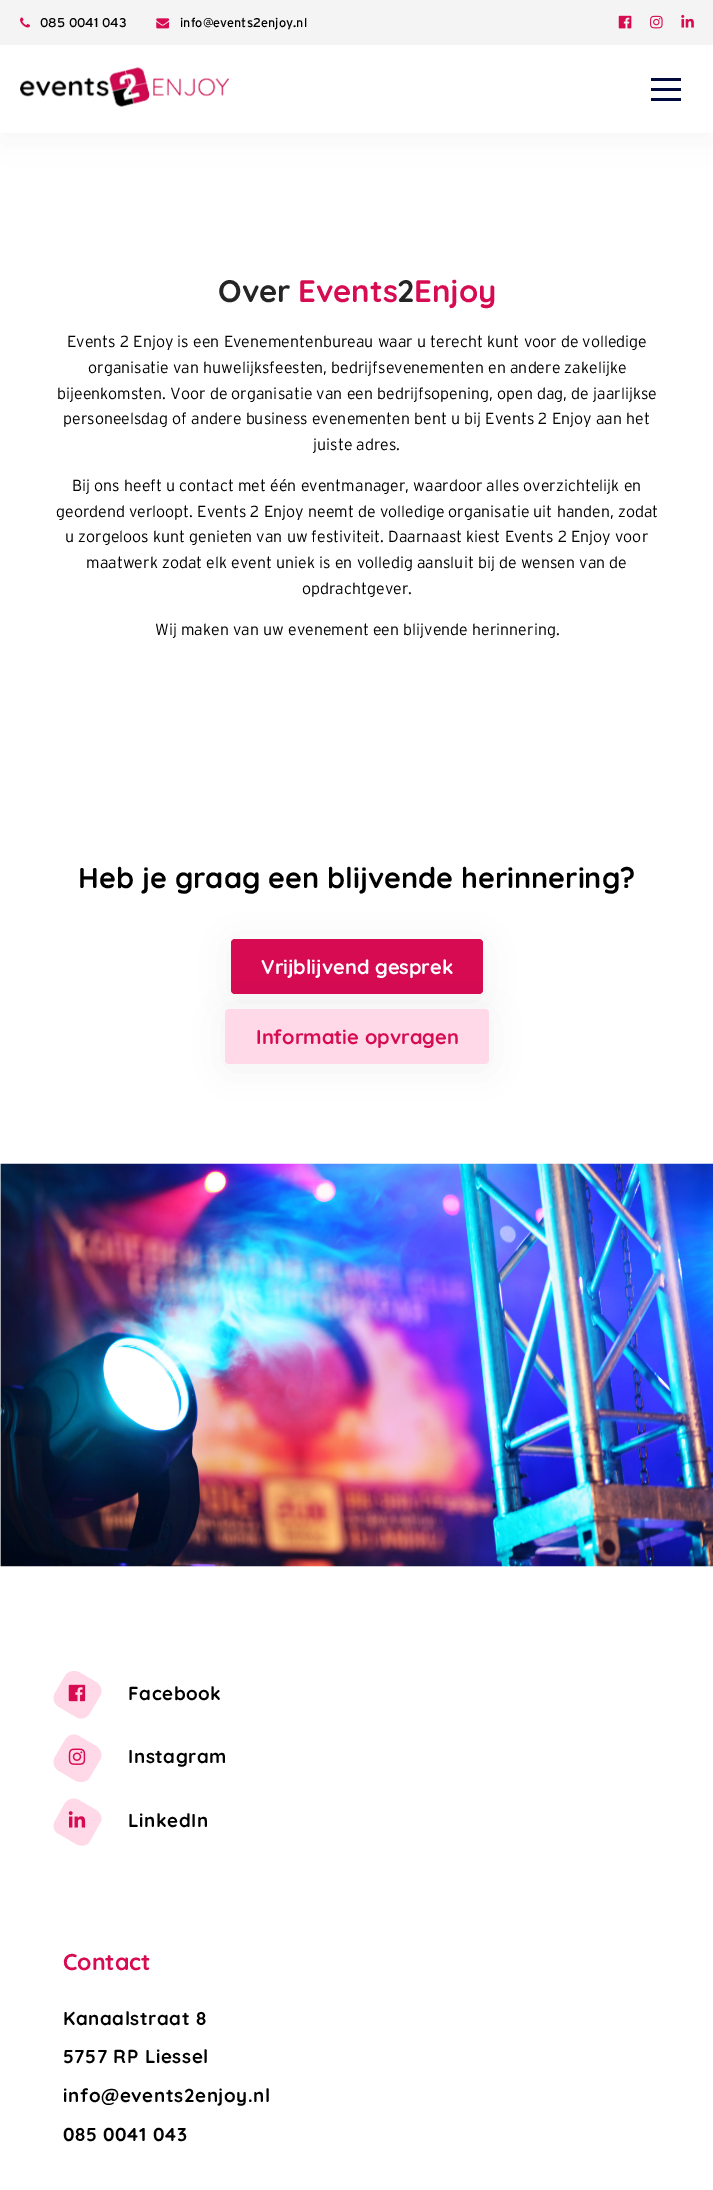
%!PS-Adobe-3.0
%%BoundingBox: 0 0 713 2190
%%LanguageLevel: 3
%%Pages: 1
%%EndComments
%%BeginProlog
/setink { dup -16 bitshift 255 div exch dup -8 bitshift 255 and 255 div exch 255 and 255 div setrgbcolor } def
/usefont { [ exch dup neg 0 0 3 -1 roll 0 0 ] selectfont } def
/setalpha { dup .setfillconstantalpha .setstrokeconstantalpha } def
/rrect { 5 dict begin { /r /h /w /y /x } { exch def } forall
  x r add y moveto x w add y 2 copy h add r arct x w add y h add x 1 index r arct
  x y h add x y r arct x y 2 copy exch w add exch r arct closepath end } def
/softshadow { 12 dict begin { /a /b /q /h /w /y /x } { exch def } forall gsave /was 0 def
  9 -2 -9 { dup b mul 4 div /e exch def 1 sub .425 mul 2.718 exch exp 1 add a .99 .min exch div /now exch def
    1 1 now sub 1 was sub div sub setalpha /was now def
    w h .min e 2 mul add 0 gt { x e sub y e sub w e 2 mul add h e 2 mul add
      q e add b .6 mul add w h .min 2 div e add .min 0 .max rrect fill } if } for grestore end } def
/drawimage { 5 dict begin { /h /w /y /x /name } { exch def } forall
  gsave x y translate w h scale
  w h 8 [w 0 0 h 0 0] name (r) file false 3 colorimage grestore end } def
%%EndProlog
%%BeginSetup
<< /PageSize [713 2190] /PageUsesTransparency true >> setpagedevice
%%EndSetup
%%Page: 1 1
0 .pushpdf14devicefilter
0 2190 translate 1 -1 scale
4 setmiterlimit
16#FFFFFF setink
0 0 713 2190 rectfill
16#000000 setink
0 10 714 133 0 19 0.04 softshadow
16#FFFFFF setink
0 45 713 88 rectfill
16#F4F4F4 setink
0 0 713 45 rectfill
(img1.raw) 20 17 10 11 drawimage
/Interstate-Regular 12.75 usefont
16#000000 setink
40 27 moveto (085 0041 043) show
(img2.raw) 156 18 14 11 drawimage
180 27 moveto (info@events2enjoy.nl) show
(img3.raw) 618 15 14 14 drawimage
(img4.raw) 650 15 13 14 drawimage
(img5.raw) 681 14 13 14 drawimage
(img6.raw) 20 67 209 40 drawimage
[
    [651 78 30 3 16#000A3C]
    [651 88 30 3 16#000A3C]
    [651 98 30 3 16#000A3C]
] { aload pop setink rectfill } forall
/Quicksand-Bold 31 usefont
16#252525 setink
218 302 moveto (Over) show
16#D60B52 setink
298 302 moveto (Events) show
16#252525 setink
397 302 moveto (2) show
16#D60B52 setink
414 302 moveto (Enjoy) show
/Interstate-Light 16 usefont
16#000000 setink
[
    [(Events 2 Enjoy is een Evenementenbureau waar u terecht kunt voor de volledige) 67 347]
    [(organisatie van huwelijksfeesten, bedrijfsevenementen en andere zakelijke) 88 373]
    [(bijeenkomsten. Voor de organisatie van een bedrijfsopening, open dag, de jaarlijkse) 57 399]
    [(personeelsdag of andere business evenementen bent u bij Events 2 Enjoy aan het) 63 424]
    [(juiste adres.) 313 450]
    [(Bij ons heeft u contact met één eventmanager, waardoor alles overzichtelijk en) 72 491]
    [(geordend verloopt. Events 2 Enjoy neemt de volledige organisatie uit handen, zodat) 56 517]
    [(u zorgeloos kunt genieten van uw festiviteit. Daarnaast kiest Events 2 Enjoy voor) 65 542]
    [(maatwerk zodat elk event uniek is en volledig aansluit bij de wensen van de) 86 568]
    [(opdrachtgever.) 302 594]
    [(Wij maken van uw evenement een blijvende herinnering.) 155 635]
] { aload pop moveto show } forall
/Quicksand-Bold 28.75 usefont
78 888 moveto (Heb je graag een blijvende herinnering?) show
231 944 252 55 4 19 0.06 softshadow
16#D60B52 setink
231 939 252 55 4 rrect fill
/Quicksand-Bold 20 usefont
16#FFFFFF setink
261 974 moveto (Vrijblijvend gesprek) show
16#000000 setink
225 1014 264 55 4 19 0.06 softshadow
16#FFD9E7 setink
225 1009 264 55 4 rrect fill
16#D60B52 setink
256 1044 moveto (Informatie opvragen) show
(img7.raw) 0 1163 713 404 drawimage
16#FFD9E7 setink
79 1672 moveto 96 1682 lineto 101 1685 103 1691 100 1696 curveto 90 1713 lineto 87 1718 81 1720 76 1717 curveto 59 1707 lineto 54 1704 52 1698 55 1693 curveto 65 1676 lineto 68 1671 74 1670 79 1672 curveto closepath fill
(img8.raw) 68 1684 18 18 drawimage
/Quicksand-Bold 18.75 usefont
16#000000 setink
128 1700 moveto 0.6 0 (Facebook) ashow
16#FFD9E7 setink
79 1736 moveto 96 1746 lineto 101 1749 103 1755 100 1760 curveto 90 1777 lineto 87 1782 81 1783 76 1781 curveto 59 1771 lineto 54 1768 52 1762 55 1757 curveto 65 1740 lineto 68 1735 74 1733 79 1736 curveto closepath fill
(img9.raw) 68 1748 18 17 drawimage
16#000000 setink
128 1763 moveto 0.6 0 (Instagram) ashow
16#FFD9E7 setink
79 1800 moveto 96 1810 lineto 101 1813 103 1819 100 1823 curveto 90 1841 lineto 87 1846 81 1847 76 1844 curveto 59 1834 lineto 54 1832 52 1826 55 1821 curveto 65 1803 lineto 68 1799 74 1797 79 1800 curveto closepath fill
(img10.raw) 68 1811 18 17 drawimage
16#000000 setink
128 1827 moveto 0.6 0 (LinkedIn) ashow
/Quicksand-Bold 23 usefont
16#D60B52 setink
63 1970 moveto (Contact) show
/Quicksand-Bold 18.75 usefont
16#000000 setink
63 2025 moveto 0.6 0 (Kanaalstraat 8) ashow
63 2063 moveto 0.6 0 (5757 RP Liessel) ashow
63 2102 moveto 0.6 0 (info@events2enjoy.nl) ashow
63 2141 moveto 0.6 0 (085 0041 043) ashow
.poppdf14devicefilter showpage
%%EOF
